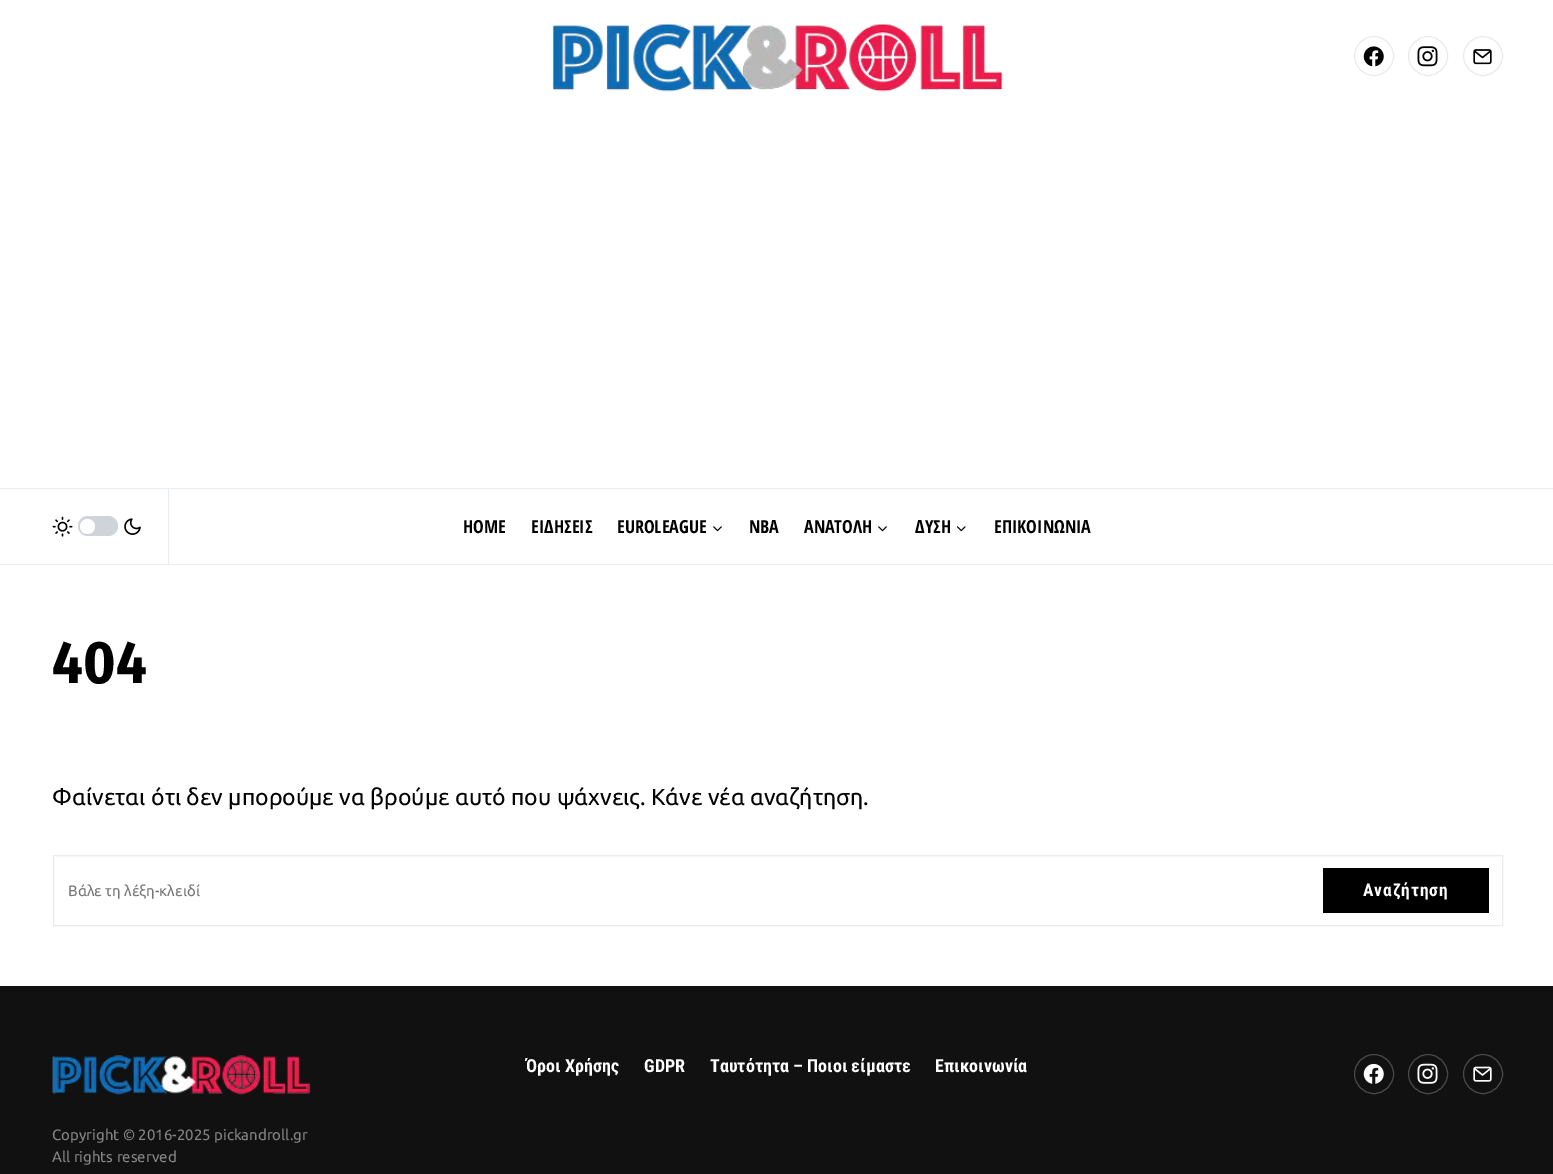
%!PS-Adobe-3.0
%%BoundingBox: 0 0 1553 1174
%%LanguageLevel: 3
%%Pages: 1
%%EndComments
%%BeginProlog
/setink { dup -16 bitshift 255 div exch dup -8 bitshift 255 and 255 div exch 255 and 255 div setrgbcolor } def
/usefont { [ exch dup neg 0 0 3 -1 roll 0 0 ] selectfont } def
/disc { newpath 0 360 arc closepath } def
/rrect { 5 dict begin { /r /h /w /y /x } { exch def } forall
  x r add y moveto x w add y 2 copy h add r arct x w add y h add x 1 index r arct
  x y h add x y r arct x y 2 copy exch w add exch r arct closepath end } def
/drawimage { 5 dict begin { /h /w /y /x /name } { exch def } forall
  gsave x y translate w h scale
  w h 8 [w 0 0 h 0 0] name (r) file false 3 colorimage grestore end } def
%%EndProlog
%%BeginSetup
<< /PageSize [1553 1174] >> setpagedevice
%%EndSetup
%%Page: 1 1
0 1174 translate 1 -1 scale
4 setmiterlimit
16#FFFFFF setink
0 0 1553 1174 rectfill
16#E9ECEF setink
0 488 1553 1 rectfill
(img1.raw) 552 23 451 69 drawimage
1374 56 19.5 disc stroke
(img2.raw) 1363 46 21 21 drawimage
1428 56 19.5 disc stroke
(img3.raw) 1417 46 21 21 drawimage
1483 56 19.5 disc stroke
(img4.raw) 1473 49 19 16 drawimage
0 564 1553 1 rectfill
(img5.raw) 52 516 21 21 drawimage
16#CED4DA setink
78 516 40 20 10 rrect fill
16#FFFFFF setink
87.5 526.5 7.5 disc fill
(img6.raw) 124 518 17 17 drawimage
16#E9ECEF setink
168 489 1 75 rectfill
/OpenSansCondensed-Bold 18 usefont
16#000000 setink
[
    [(HOME) 463 533]
    [(ΕΙΔΗΣΕΙΣ) 531 533]
    [(EUROLEAGUE) 617 533]
] { aload pop moveto show } forall
(img7.raw) 713 526 9 6 drawimage
749 533 moveto (ΝΒΑ) show
804 533 moveto (ΑΝΑΤΟΛΗ) show
(img7.raw) 878 526 9 6 drawimage
915 533 moveto (ΔΥΣΗ) show
(img8.raw) 956 526 10 6 drawimage
994 533 moveto (ΕΠΙΚΟΙΝΩΝΙΑ) show
/FiraSansCondensed-Bold 60 usefont
52 683 moveto (404) show
/Ubuntu-Regular 23 usefont
52 805 moveto (Φαίνεται ότι δεν μπορούμε να βρούμε αυτό που ψάχνεις. Κάνε νέα αναζήτηση.) show
16#E9ECEF setink
53.5 855.5 1449 70 rectstroke
/Ubuntu-Regular 15 usefont
16#757575 setink
68 896 moveto (Βάλε τη λέξη-κλειδί) show
16#000000 setink
1323 868 166 45 rectfill
/RobotoCondensed-Bold 17.5 usefont
16#FFFFFF setink
1363 896 moveto 0.9 0 (Αναζήτηση) ashow
16#111111 setink
0 986 1553 188 rectfill
/RobotoCondensed-Bold 18 usefont
16#FFFFFF setink
[
    [(Όροι Χρήσης) 526 1072]
    [(GDPR) 644 1072]
    [(Ταυτότητα – Ποιοι είμαστε) 710 1072]
    [(Επικοινωνία) 935 1072]
] { aload pop moveto show } forall
16#494949 setink
1374 1074 19.5 disc stroke
(img9.raw) 1363 1063 21 21 drawimage
1428 1074 19.5 disc stroke
(img10.raw) 1417 1063 21 21 drawimage
1483 1074 19.5 disc stroke
(img11.raw) 1473 1066 19 16 drawimage
(img12.raw) 52 1055 259 40 drawimage
/Ubuntu-Regular 15 usefont
16#858585 setink
52 1140 moveto (Copyright © 2016-2025 pickandroll.gr) show
52 1162 moveto (All rights reserved) show
showpage
%%EOF
